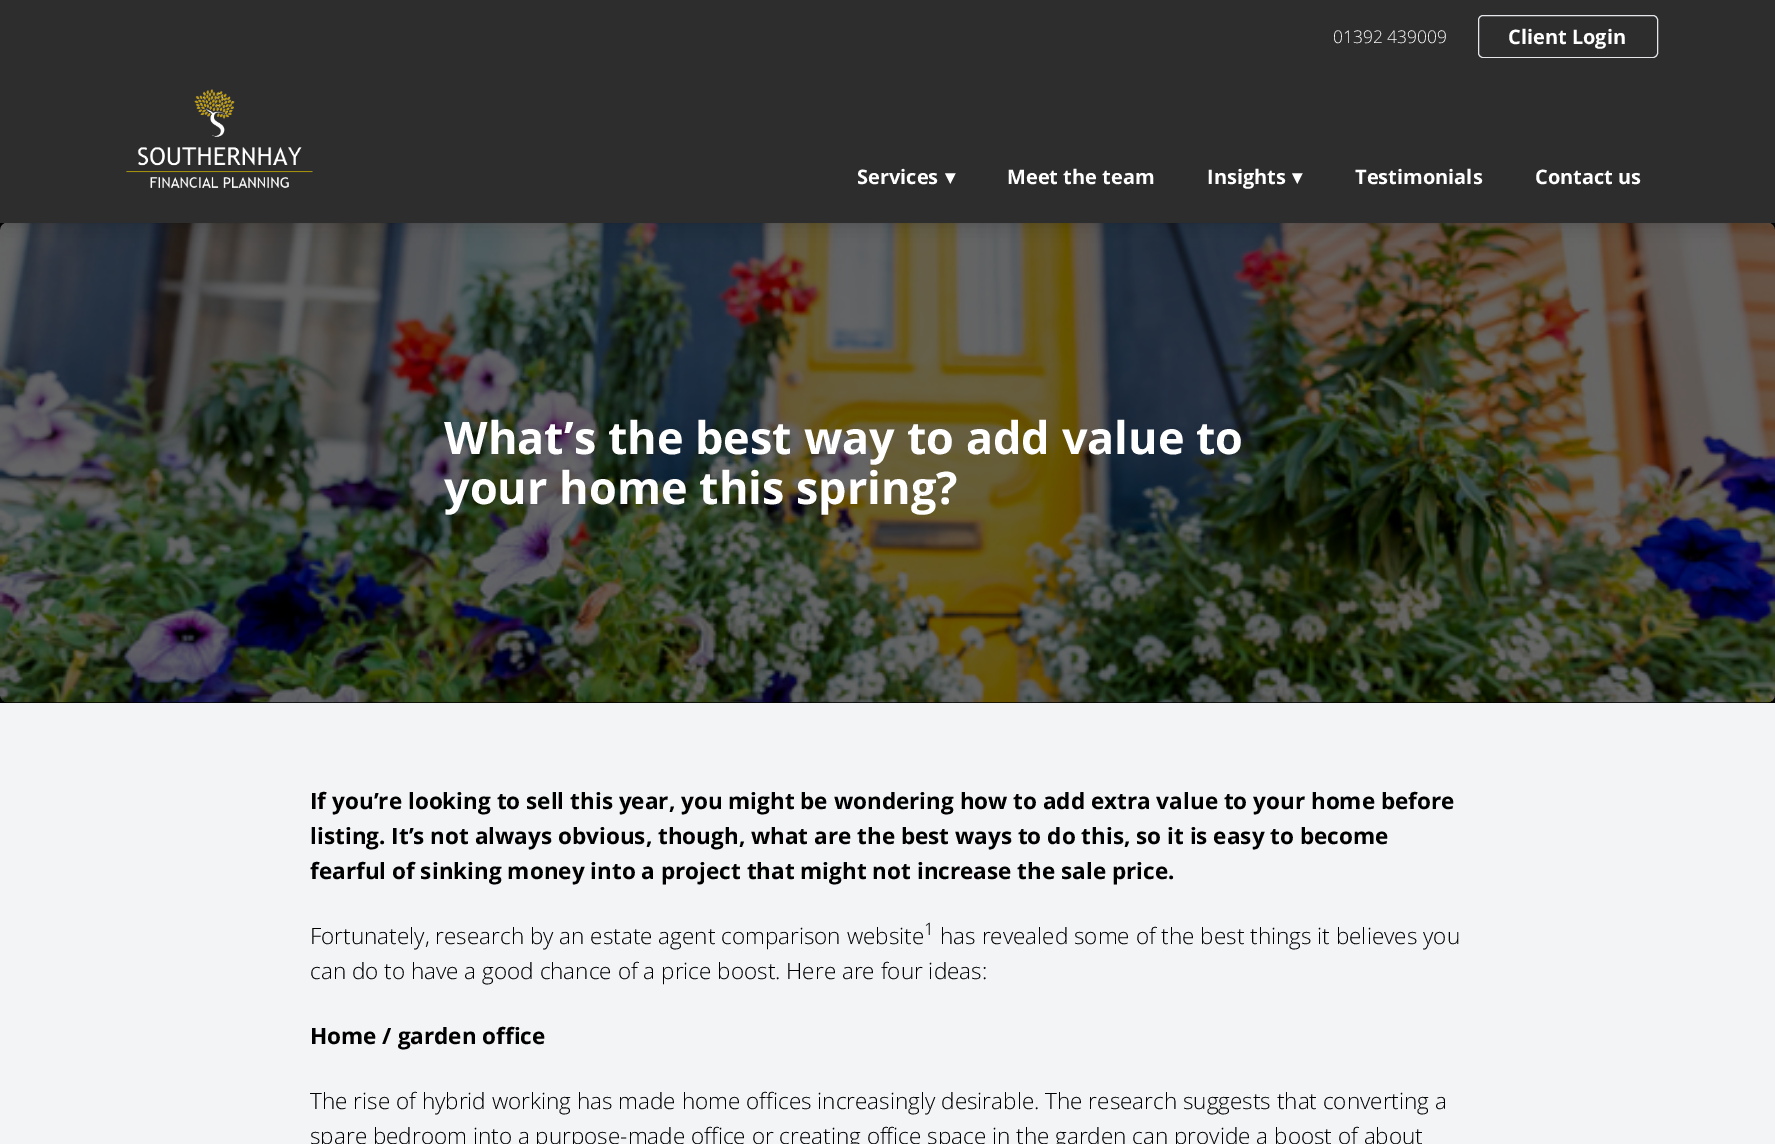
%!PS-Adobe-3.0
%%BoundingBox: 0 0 1775 1144
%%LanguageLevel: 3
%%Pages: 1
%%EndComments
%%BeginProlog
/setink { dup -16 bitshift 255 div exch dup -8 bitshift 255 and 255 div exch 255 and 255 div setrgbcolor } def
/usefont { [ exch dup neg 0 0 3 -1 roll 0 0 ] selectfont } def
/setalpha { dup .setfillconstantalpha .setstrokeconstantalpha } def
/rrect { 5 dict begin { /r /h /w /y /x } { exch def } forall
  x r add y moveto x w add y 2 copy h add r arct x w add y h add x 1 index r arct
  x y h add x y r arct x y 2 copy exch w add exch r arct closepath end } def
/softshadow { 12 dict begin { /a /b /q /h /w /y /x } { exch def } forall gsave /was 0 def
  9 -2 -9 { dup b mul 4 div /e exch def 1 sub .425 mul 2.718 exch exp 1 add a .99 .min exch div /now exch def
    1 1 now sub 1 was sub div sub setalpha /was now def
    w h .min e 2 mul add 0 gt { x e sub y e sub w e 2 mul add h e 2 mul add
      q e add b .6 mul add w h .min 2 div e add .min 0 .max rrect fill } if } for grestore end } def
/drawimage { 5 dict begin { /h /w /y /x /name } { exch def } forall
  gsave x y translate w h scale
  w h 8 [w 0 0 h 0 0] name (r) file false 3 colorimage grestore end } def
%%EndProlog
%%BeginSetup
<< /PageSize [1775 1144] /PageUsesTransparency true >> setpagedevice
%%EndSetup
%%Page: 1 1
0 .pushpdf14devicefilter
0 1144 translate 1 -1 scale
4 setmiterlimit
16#F3F4F6 setink
0 0 1775 1144 rectfill
16#2D2D2D setink
0 0 1775 58 rectfill
/OpenSans-Light 17.5 usefont
16#FFFFFF setink
1333 43 moveto (01392 439009) show
16#E5E7EB setink
1478.5 15.5 179 42 4.5 rrect stroke
/OpenSans-Bold 20 usefont
16#FFFFFF setink
1508 44 moveto (Client Login) show
16#000000 setink
0 223 1775 480 rectfill
(img2.raw) 0 223 1775 480 drawimage
5 68 1765 155 0 4 0.1 softshadow
4 74 1767 157 0 9.5 0.1 softshadow
16#2D2D2D setink
0 58 1775 165 rectfill
(img1.raw) 126 89 187 99 drawimage
16#FFFFFF setink
857 184 moveto (Services) show
/DejaVuSans-Bold 20 usefont
945 184 moveto (▾) show
/OpenSans-Bold 20 usefont
1007 184 moveto (Meet the team) show
1207 184 moveto (Insights) show
/DejaVuSans-Bold 20 usefont
1292 184 moveto (▾) show
/OpenSans-Bold 20 usefont
1355 184 moveto (Testimonials) show
1535 184 moveto (Contact us) show
/OpenSans-Bold 45 usefont
444 454 moveto (What’s the best way to add value to) show
444 504 moveto (your home this spring?) show
/OpenSans-Bold 22.5 usefont
16#000000 setink
[
    [(If you’re looking to sell this year, you might be wondering how to add extra value to your home before) 310 809]
    [(listing. It’s not always obvious, though, what are the best ways to do this, so it is easy to become) 310 844]
    [(fearful of sinking money into a project that might not increase the sale price.) 310 879]
] { aload pop moveto show } forall
/OpenSans-Light 22.5 usefont
310 944 moveto (Fortunately, research by an estate agent comparison website) show
/OpenSans-Light 17 usefont
924 935 moveto (1) show
/OpenSans-Light 22.5 usefont
940 944 moveto (has revealed some of the best things it believes you) show
310 979 moveto (can do to have a good chance of a price boost. Here are four ideas:) show
/OpenSans-Bold 22.5 usefont
310 1044 moveto (Home / garden office) show
/OpenSans-Light 22.5 usefont
310 1109 moveto (The rise of hybrid working has made home offices increasingly desirable. The research suggests that converting a) show
310 1144 moveto (spare bedroom into a purpose-made office or creating office space in the garden can provide a boost of about) show
.poppdf14devicefilter showpage
%%EOF
